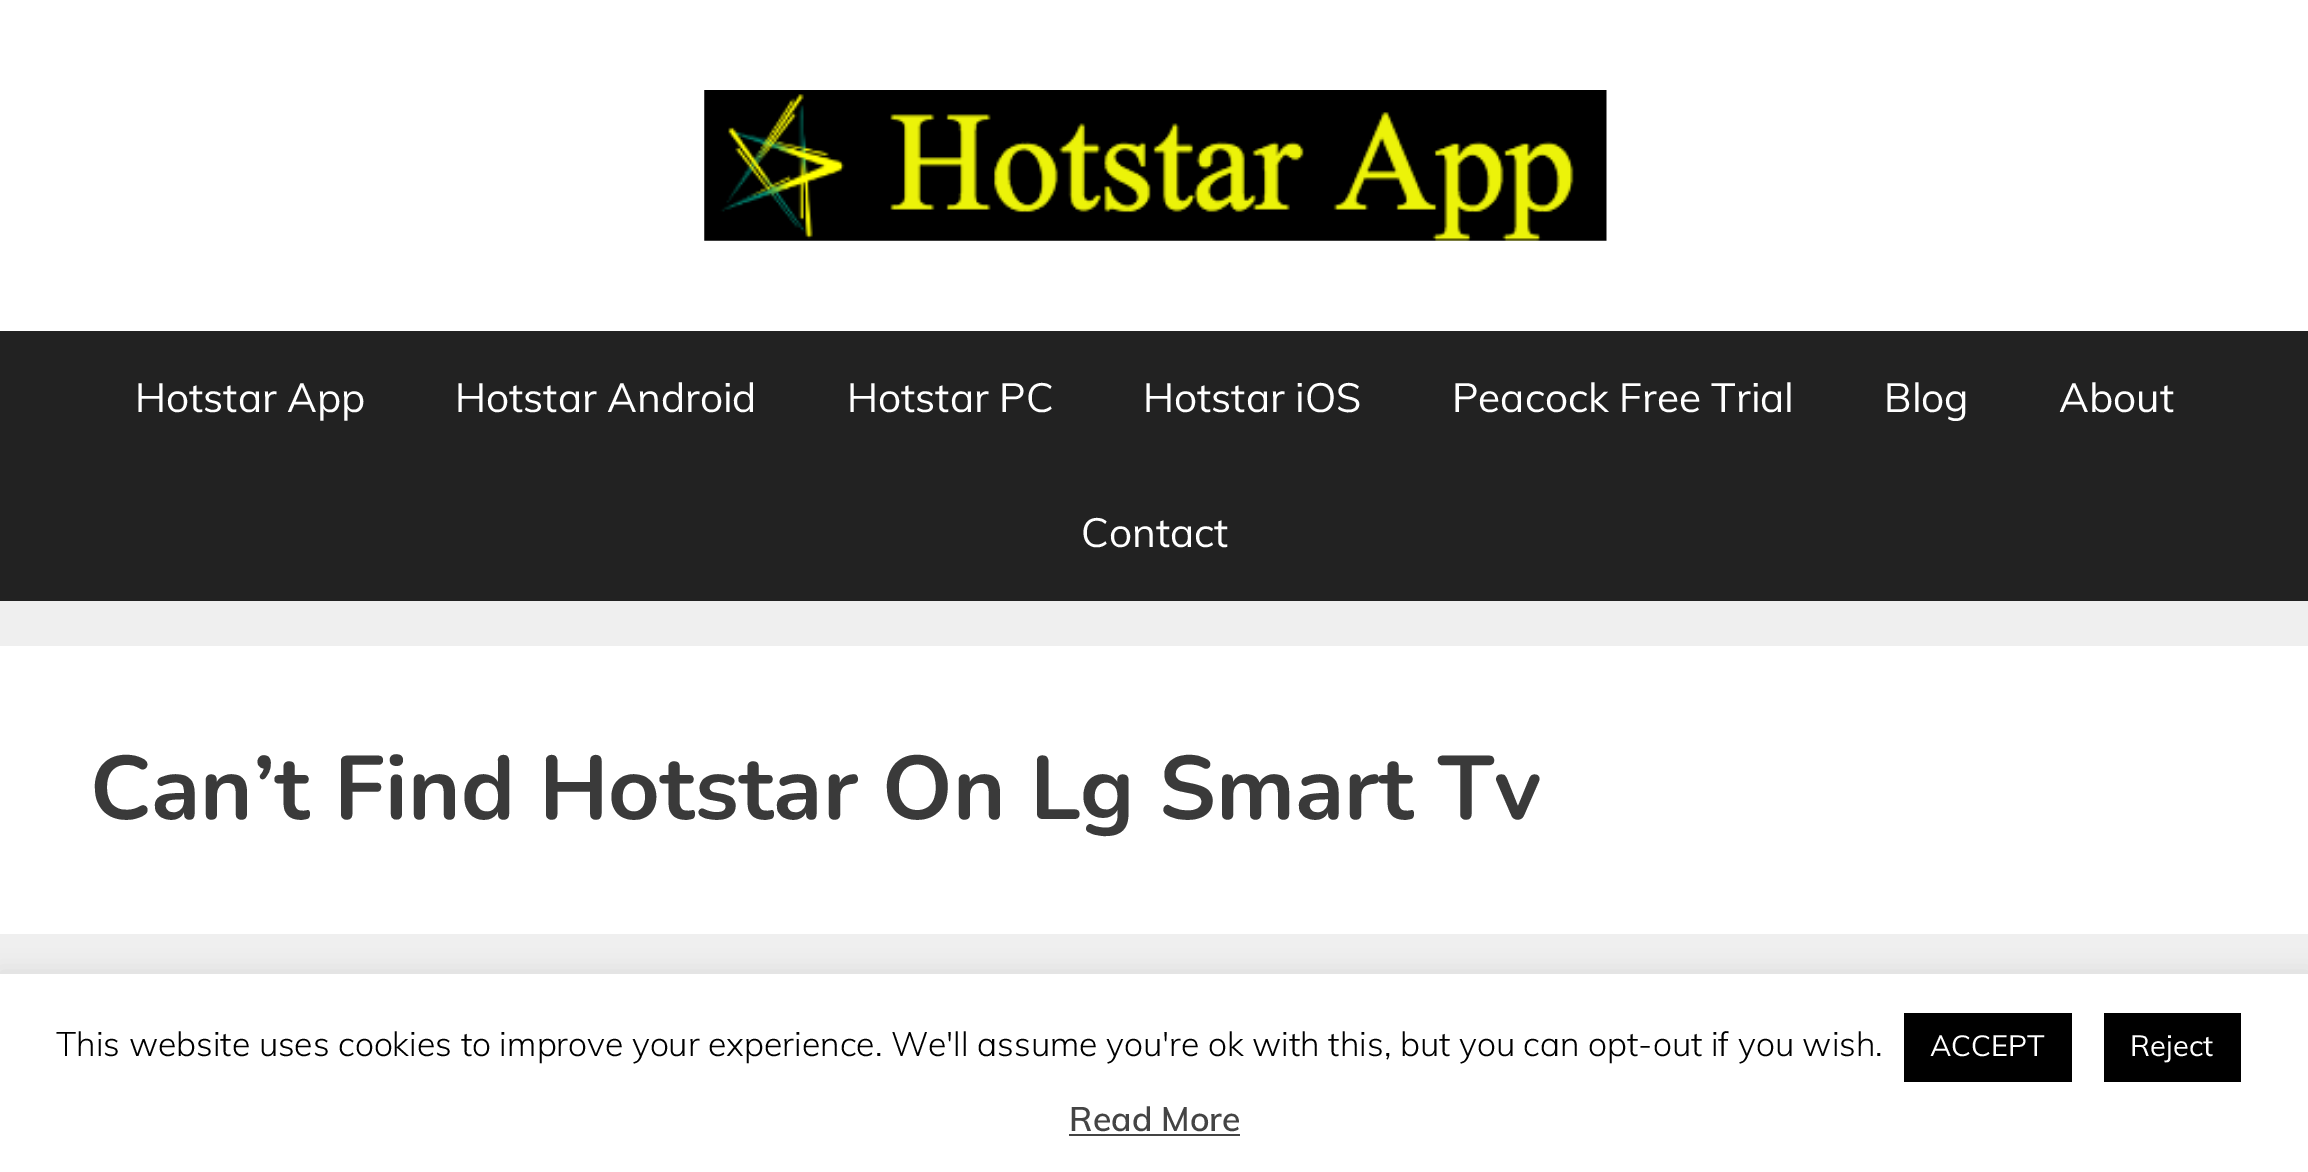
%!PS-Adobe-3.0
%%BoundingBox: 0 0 2308 1172
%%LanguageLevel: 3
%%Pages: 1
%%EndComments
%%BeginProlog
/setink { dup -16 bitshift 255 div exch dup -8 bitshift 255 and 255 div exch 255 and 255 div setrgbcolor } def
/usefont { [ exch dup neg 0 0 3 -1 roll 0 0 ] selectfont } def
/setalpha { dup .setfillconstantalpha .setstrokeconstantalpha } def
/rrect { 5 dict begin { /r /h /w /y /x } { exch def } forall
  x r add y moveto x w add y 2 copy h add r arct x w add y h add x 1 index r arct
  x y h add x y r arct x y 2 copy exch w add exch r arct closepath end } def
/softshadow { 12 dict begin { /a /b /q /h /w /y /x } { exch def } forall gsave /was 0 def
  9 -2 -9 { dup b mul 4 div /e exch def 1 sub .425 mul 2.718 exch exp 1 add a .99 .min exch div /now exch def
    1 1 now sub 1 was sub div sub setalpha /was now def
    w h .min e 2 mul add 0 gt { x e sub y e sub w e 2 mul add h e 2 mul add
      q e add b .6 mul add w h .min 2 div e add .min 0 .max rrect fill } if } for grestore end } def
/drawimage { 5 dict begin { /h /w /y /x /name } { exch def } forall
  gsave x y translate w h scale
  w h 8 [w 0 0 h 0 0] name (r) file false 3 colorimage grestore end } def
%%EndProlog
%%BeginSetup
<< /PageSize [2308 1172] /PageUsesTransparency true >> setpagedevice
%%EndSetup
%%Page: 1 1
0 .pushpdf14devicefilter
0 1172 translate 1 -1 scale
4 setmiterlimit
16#EFEFEF setink
0 0 2308 1172 rectfill
16#FFFFFF setink
0 0 2308 331 rectfill
(img1.raw) 704 90 903 151 drawimage
16#222222 setink
0 331 2308 270 rectfill
/Muli-Regular 40.5 usefont
16#FFFFFF setink
[
    [(Hotstar App) 135 412]
    [(Hotstar Android) 455 412]
    [(Hotstar PC) 847 412]
    [(Hotstar iOS) 1143 412]
    [(Peacock Free Trial) 1452 412]
    [(Blog) 1884 412]
    [(About) 2059 412]
    [(Contact) 1081 547]
] { aload pop moveto show } forall
0 646 2308 288 rectfill
/Nunito-Bold 90 usefont
16#3A3A3A setink
90 819 moveto (Can’t Find Hotstar On Lg Smart Tv) show
16#ACABAB setink
0 972 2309 198 0 11 0.3 softshadow
16#FFFFFF setink
0 974 2308 198 rectfill
/Muli-Light 33.75 usefont
16#000000 setink
56 1056 moveto (This website uses cookies to improve your experience. We'll assume you're ok with this, but you can opt-out if you wish.) show
1904 1013 168 69 rectfill
/Muli-Regular 29 usefont
16#FFFFFF setink
1930 1056 moveto (ACCEPT) show
16#000000 setink
2104 1013 137 69 rectfill
16#FFFFFF setink
2130 1056 moveto (Reject) show
/Muli-SemiBold 33.75 usefont
16#444444 setink
1069 1131 moveto (Read More) show
1069 1134 171 2 rectfill
.poppdf14devicefilter showpage
%%EOF
